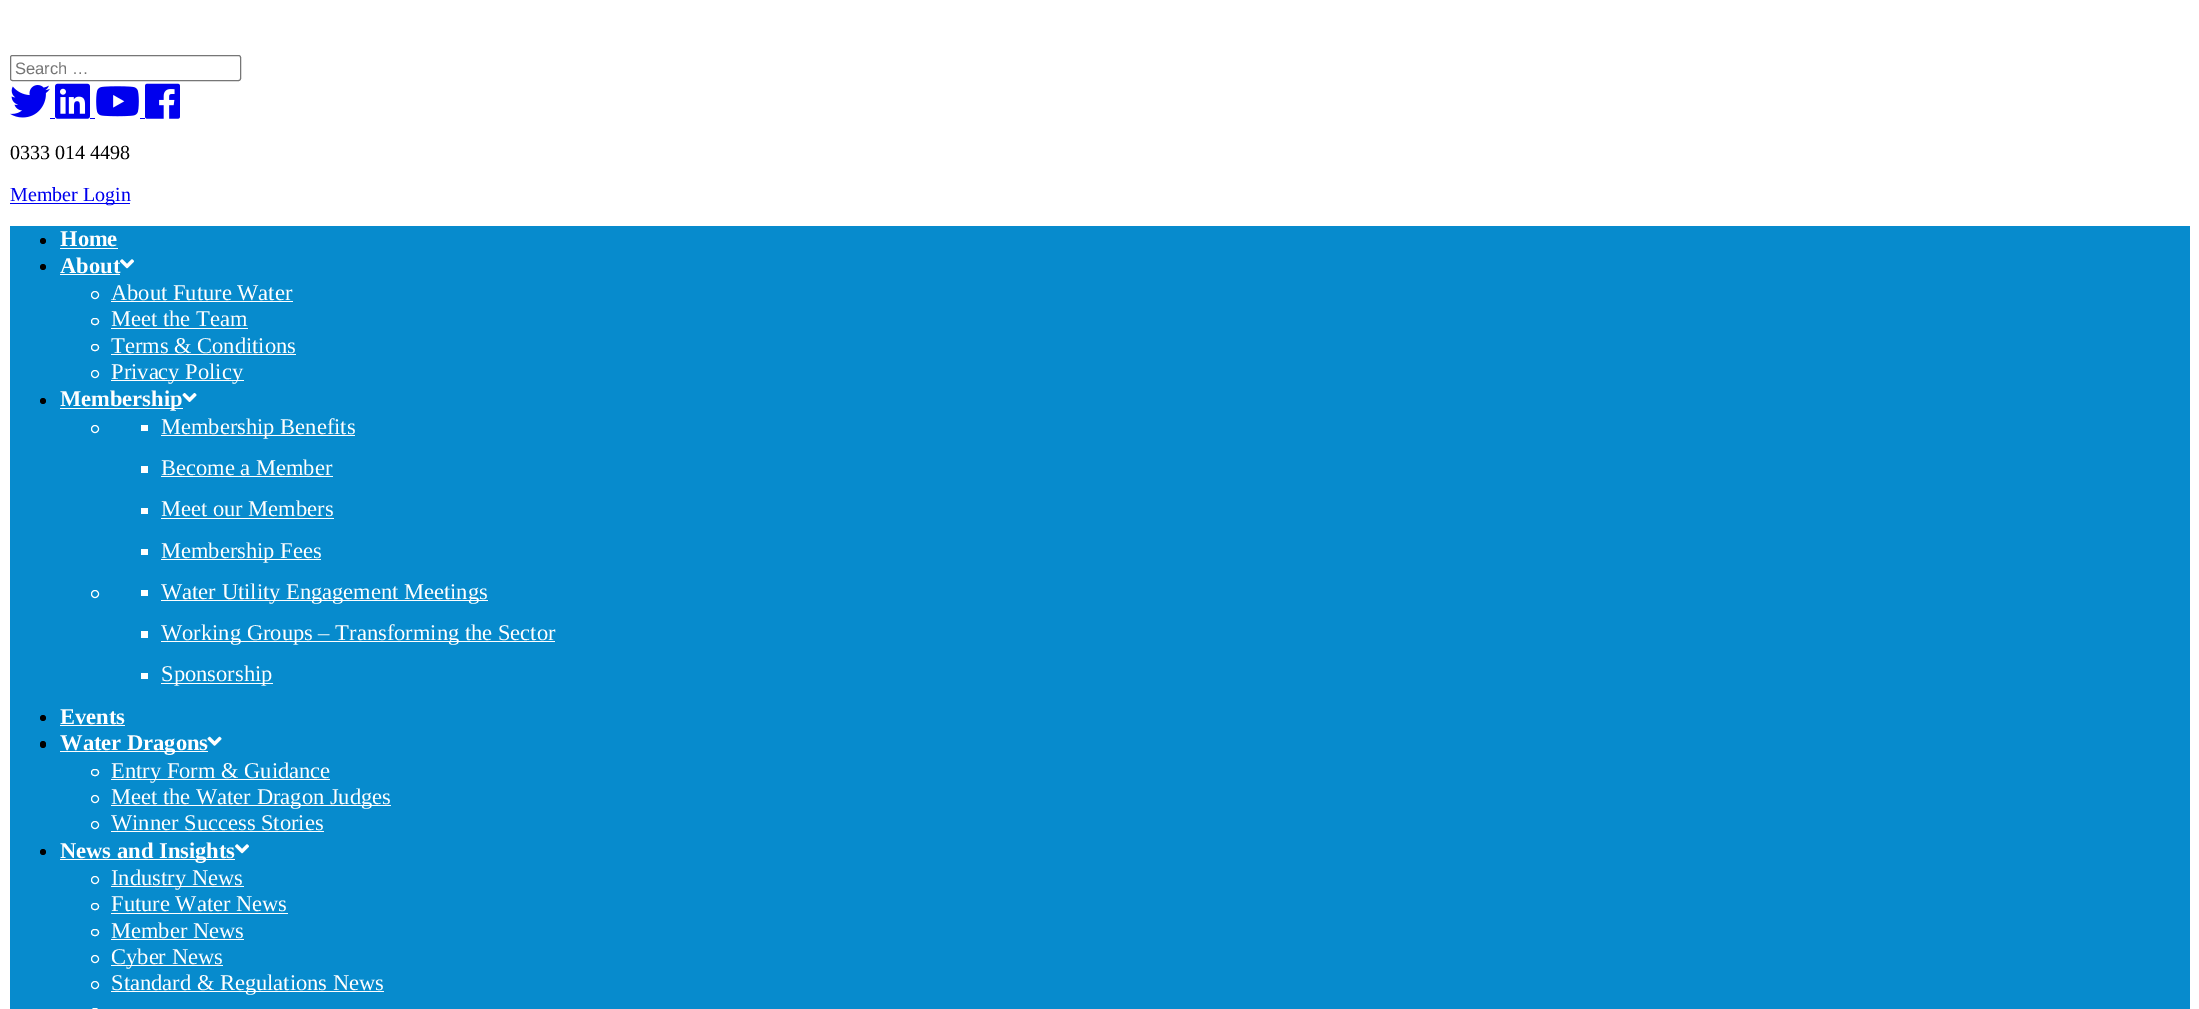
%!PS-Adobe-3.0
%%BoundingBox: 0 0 2199 1009
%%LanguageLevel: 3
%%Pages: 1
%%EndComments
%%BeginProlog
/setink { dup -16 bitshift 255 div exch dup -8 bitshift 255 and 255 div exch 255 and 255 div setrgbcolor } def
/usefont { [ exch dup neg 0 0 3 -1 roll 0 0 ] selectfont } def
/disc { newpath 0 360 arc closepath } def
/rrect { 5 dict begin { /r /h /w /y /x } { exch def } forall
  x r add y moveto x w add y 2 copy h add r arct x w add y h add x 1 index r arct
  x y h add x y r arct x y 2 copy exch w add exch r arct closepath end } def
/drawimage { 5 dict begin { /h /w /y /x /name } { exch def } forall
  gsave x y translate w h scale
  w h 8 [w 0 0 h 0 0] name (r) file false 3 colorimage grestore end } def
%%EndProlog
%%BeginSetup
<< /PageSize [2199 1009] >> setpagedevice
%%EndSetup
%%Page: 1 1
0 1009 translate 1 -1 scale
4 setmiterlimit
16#FFFFFF setink
0 0 2199 1009 rectfill
16#767676 setink
10.5 55.5 230 25 2 rrect stroke
/LiberationSans-Regular 16.5 usefont
16#757575 setink
15 74 moveto (Search …) show
(img1.raw) 10 85 40 33 drawimage
16#0000EE setink
50 118 5 1 rectfill
(img2.raw) 55 83 35 36 drawimage
90 118 5 1 rectfill
(img3.raw) 96 86 43 31 drawimage
140 118 5 1 rectfill
(img4.raw) 145 83 35 36 drawimage
/LiberationSerif-Regular 20 usefont
16#000000 setink
10 159 moveto (0333 014 4498) show
16#0000EE setink
10 203 120 1 rectfill
10 201 moveto (Member Login) show
16#078BCD setink
10 226 2180 783 rectfill
16#000000 setink
43 241 3 disc fill
/LiberationSerif-Bold 22.5 usefont
16#FFFFFF setink
60 246 moveto (Home) show
60 248 58 1 rectfill
16#000000 setink
43 267 3 disc fill
16#FFFFFF setink
60 273 moveto (About) show
60 274 60 1 rectfill
(img5.raw) 120 259 14 10 drawimage
95 295 3.5 disc stroke
/LiberationSerif-Regular 22.5 usefont
111 300 moveto (About Future Water) show
111 301 182 1 rectfill
91.5 318.5 7 6 3 rrect stroke
111 326 moveto (Meet the Team) show
111 328 137 1 rectfill
91.5 344.5 7 6 3 rrect stroke
111 353 moveto (Terms & Conditions) show
111 354 185 1 rectfill
95 374 3.5 disc stroke
111 380 133 1 rectfill
111 379 moveto (Privacy Policy) show
16#000000 setink
43 401 3 disc fill
16#FFFFFF setink
60 408 123 1 rectfill
/LiberationSerif-Bold 22.5 usefont
60 406 moveto (Membership) show
(img6.raw) 182 393 15 9 drawimage
95 429 3.5 disc stroke
141 425 7 6 rectfill
161 435 194 1 rectfill
/LiberationSerif-Regular 22.5 usefont
161 434 moveto (Membership Benefits) show
141 466 7 7 rectfill
161 475 moveto (Become a Member) show
161 476 172 1 rectfill
141 508 7 6 rectfill
161 516 moveto (Meet our Members) show
[
    [161 518 173 1 16#FFFFFF]
    [141 549 7 6 16#FFFFFF]
    [161 559 160 1 16#FFFFFF]
] { aload pop setink rectfill } forall
161 558 moveto (Membership Fees) show
95 594 3.5 disc stroke
141 590 7 6 rectfill
161 600 327 1 rectfill
161 599 moveto (Water Utility Engagement Meetings) show
141 631 7 7 rectfill
161 641 394 1 rectfill
161 640 moveto (Working Groups – Transforming the Sector) show
141 673 7 6 rectfill
161 683 112 1 rectfill
161 681 moveto (Sponsorship) show
16#000000 setink
43 718 3 disc fill
/LiberationSerif-Bold 22.5 usefont
16#FFFFFF setink
60 724 moveto (Events) show
60 725 65 1 rectfill
16#000000 setink
40 741 6 7 3 rrect fill
16#FFFFFF setink
60 751 148 1 rectfill
60 750 moveto (Water Dragons) show
(img7.raw) 207 736 15 10 drawimage
91.5 769.5 7 6 3 rrect stroke
111 779 219 1 rectfill
/LiberationSerif-Regular 22.5 usefont
111 778 moveto (Entry Form & Guidance) show
95 799 3.5 disc stroke
111 805 280 1 rectfill
111 804 moveto (Meet the Water Dragon Judges) show
95 825 3.5 disc stroke
111 830 moveto (Winner Success Stories) show
111 831 213 1 rectfill
16#000000 setink
43 852 3 disc fill
16#FFFFFF setink
60 859 175 1 rectfill
/LiberationSerif-Bold 22.5 usefont
60 858 moveto (News and Insights) show
(img5.raw) 235 844 14 10 drawimage
95 880 3.5 disc stroke
111 886 133 1 rectfill
/LiberationSerif-Regular 22.5 usefont
111 885 moveto (Industry News) show
91.5 903.5 7 6 3 rrect stroke
111 911 moveto (Future Water News) show
111 913 177 1 rectfill
91.5 929.5 7 6 3 rrect stroke
111 938 moveto (Member News) show
111 939 133 1 rectfill
95 959 3.5 disc stroke
111 965 112 1 rectfill
111 964 moveto (Cyber News) show
95 985 3.5 disc stroke
111 991 273 1 rectfill
111 990 moveto (Standard & Regulations News) show
91.5 1008.5 7 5 3 rrect stroke
showpage
%%EOF
